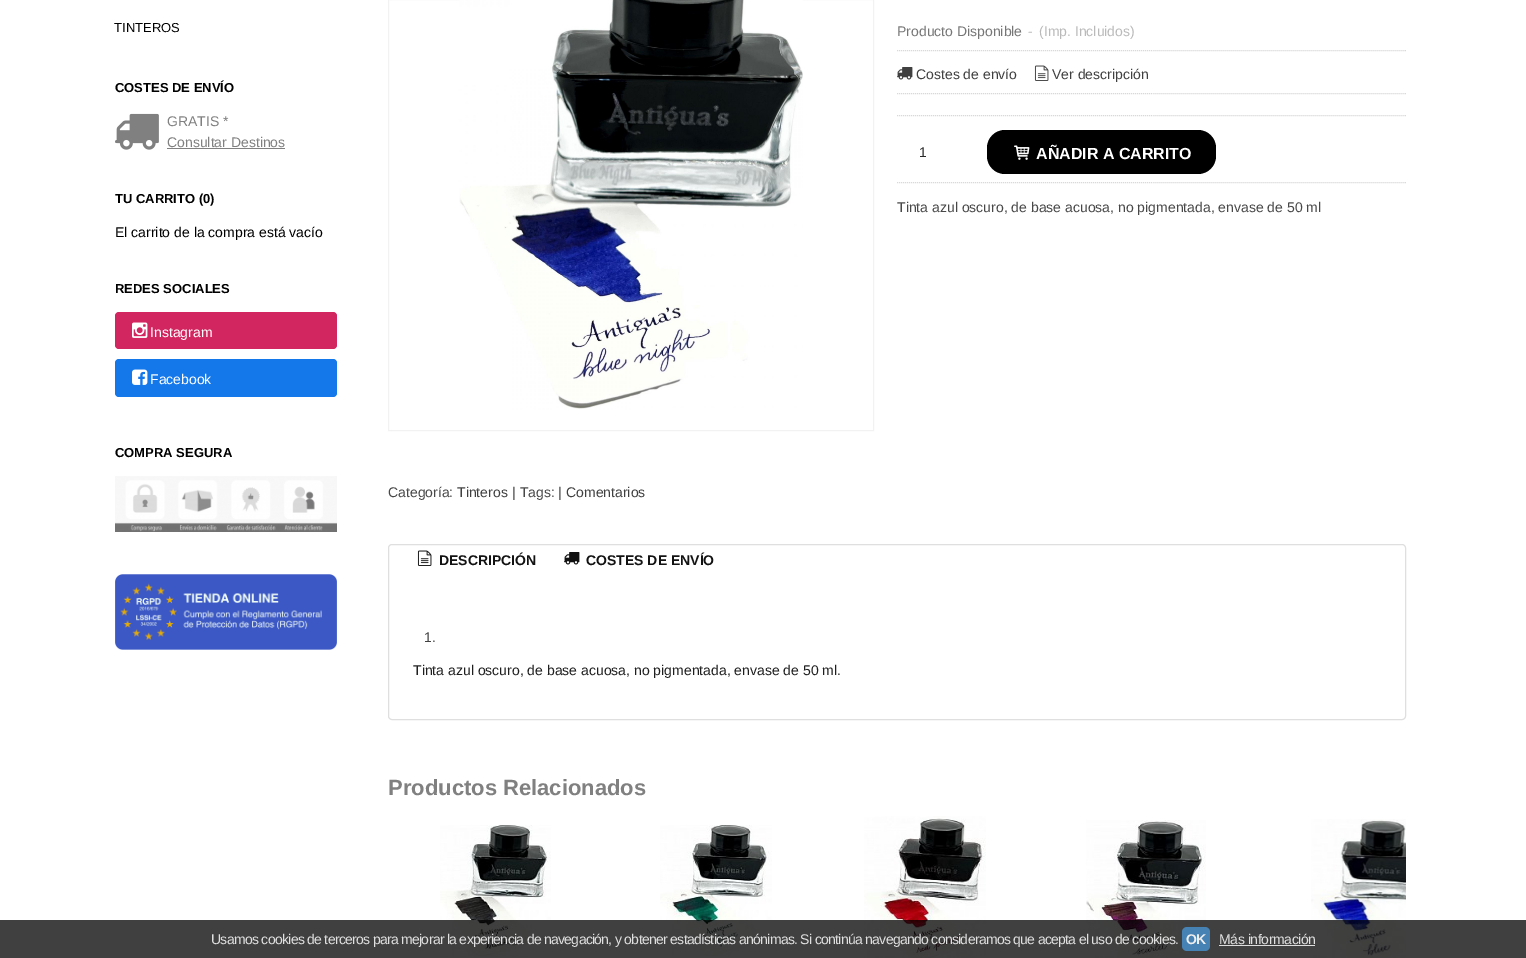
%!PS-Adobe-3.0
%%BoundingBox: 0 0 1526 958
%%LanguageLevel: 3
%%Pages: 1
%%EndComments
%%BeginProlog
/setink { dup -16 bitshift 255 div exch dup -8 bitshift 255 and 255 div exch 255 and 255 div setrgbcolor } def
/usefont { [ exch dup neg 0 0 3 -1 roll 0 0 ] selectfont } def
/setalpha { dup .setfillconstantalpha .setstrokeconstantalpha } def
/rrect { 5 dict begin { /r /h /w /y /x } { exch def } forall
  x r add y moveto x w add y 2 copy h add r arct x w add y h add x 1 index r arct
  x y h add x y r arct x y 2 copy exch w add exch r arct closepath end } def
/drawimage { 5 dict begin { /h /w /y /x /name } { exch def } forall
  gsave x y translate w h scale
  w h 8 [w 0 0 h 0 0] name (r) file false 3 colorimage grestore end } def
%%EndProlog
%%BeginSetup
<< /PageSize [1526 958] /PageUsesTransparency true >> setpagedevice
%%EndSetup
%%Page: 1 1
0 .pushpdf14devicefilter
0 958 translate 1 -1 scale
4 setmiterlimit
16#FFFFFF setink
0 0 1526 958 rectfill
/LiberationSans-Regular 13 usefont
16#000000 setink
114 32 moveto (TINTEROS) show
/LiberationSans-Bold 13 usefont
115 92 moveto (COSTES DE ENVÍO) show
(img1.raw) 115 113 44 37 drawimage
/LiberationSans-Regular 14 usefont
16#808080 setink
167 126 moveto (GRATIS *) show
167 147 moveto (Consultar Destinos) show
167 148 118 1 rectfill
/LiberationSans-Bold 13 usefont
16#000000 setink
115 203 moveto (TU CARRITO \(0\)) show
/LiberationSans-Regular 14 usefont
115 237 moveto (El carrito de la compra está vacío) show
/LiberationSans-Bold 13 usefont
115 293 moveto (REDES SOCIALES) show
16#D22660 setink
115 312 222 37 4 rrect fill
(img2.raw) 132 322 16 16 drawimage
/LiberationSans-Regular 14 usefont
16#FFFFFF setink
150 337 moveto (Instagram) show
16#1478EB setink
115 359 222 38 4 rrect fill
(img3.raw) 132 369 16 16 drawimage
16#FFFFFF setink
150 384 moveto (Facebook) show
/LiberationSans-Bold 13 usefont
16#000000 setink
115 457 moveto (COMPRA SEGURA) show
(img4.raw) 115 476 222 56 drawimage
(img5.raw) 115 574 222 76 drawimage
16#F2F2F2 setink
388.5 -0.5 485 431 rectstroke
(img6.raw) 459 0 344 410 drawimage
/LiberationSans-Regular 14 usefont
16#767676 setink
897 36 moveto (Producto Disponible) show
16#BABABA setink
1028 36 moveto (-) show
1039 36 moveto (\(Imp. Incluidos\)) show
16#D9D9D9 setink
[1 1] 0 setdash
897 50.5 moveto 1406 50.5 lineto stroke
(img7.raw) 897 67 16 13 drawimage
16#404040 setink
916 79 moveto (Costes de envío) show
(img8.raw) 1034 65 15 16 drawimage
1052 79 moveto (Ver descripción) show
16#D9D9D9 setink
897 93.5 moveto 1406 93.5 lineto stroke
897 115.5 moveto 1406 115.5 lineto stroke
16#292929 setink
919 157 moveto (1) show
16#000000 setink
987 130 229 44 18 rrect fill
(img9.raw) 1014 145 16 15 drawimage
/LiberationSans-Bold 16 usefont
16#FFFFFF setink
1036 159 moveto (AÑADIR A CARRITO) show
16#D9D9D9 setink
897 182.5 moveto 1406 182.5 lineto stroke
/LiberationSans-Regular 14 usefont
16#484848 setink
897 212 moveto (Tinta azul oscuro, de base acuosa, no pigmentada, envase de 50 ml) show
388 497 moveto (Categoría:) show
16#404040 setink
457 497 moveto (Tinteros) show
16#484848 setink
512 497 moveto (| Tags: |) show
16#404040 setink
566 497 moveto (Comentarios) show
16#DFDFDF setink
[] 0 setdash
388.5 544.5 1017 175 3.5 rrect stroke
(img10.raw) 417 550 15 16 drawimage
/LiberationSans-Bold 14 usefont
16#121212 setink
439 565 moveto (DESCRIPCIÓN) show
(img11.raw) 564 552 16 13 drawimage
586 565 moveto (COSTES DE ENVÍO) show
/LiberationSans-Regular 14 usefont
16#404040 setink
424 642 moveto (1.) show
16#1F1F1F setink
413 675 moveto (Tinta azul oscuro, de base acuosa, no pigmentada, envase de 50 ml.) show
/LiberationSans-Bold 22 usefont
16#808080 setink
388 795 moveto (Productos Relacionados) show
(img12.raw) 440 825 111 132 drawimage
(img13.raw) 660 825 112 131 drawimage
(img14.raw) 864 816 122 142 drawimage
(img15.raw) 1086 820 120 138 drawimage
(img16.raw) 1311 819 95 139 drawimage
0.75 setalpha
16#000000 setink
0 920 1526 38 rectfill
/LiberationSans-Regular 14 usefont
1 setalpha
16#E0E0E0 setink
211 944 moveto -0.7 0 (Usamos cookies de terceros para mejorar la experiencia de navegación, y obtener estadísticas anónimas. Si continúa navegando consideramos que acepta el uso de cookies.) ashow
16#4682B4 setink
1182 927 28 24 5 rrect fill
/LiberationSans-Bold 14 usefont
16#EEEEEE setink
1186 944 moveto -0.4 0 (OK) ashow
/LiberationSans-Regular 14 usefont
16#E0E0E0 setink
1219 944 moveto -0.4 0 (Más información) ashow
16#DDDDDD setink
1219 945 96 1 rectfill
.poppdf14devicefilter showpage
%%EOF
